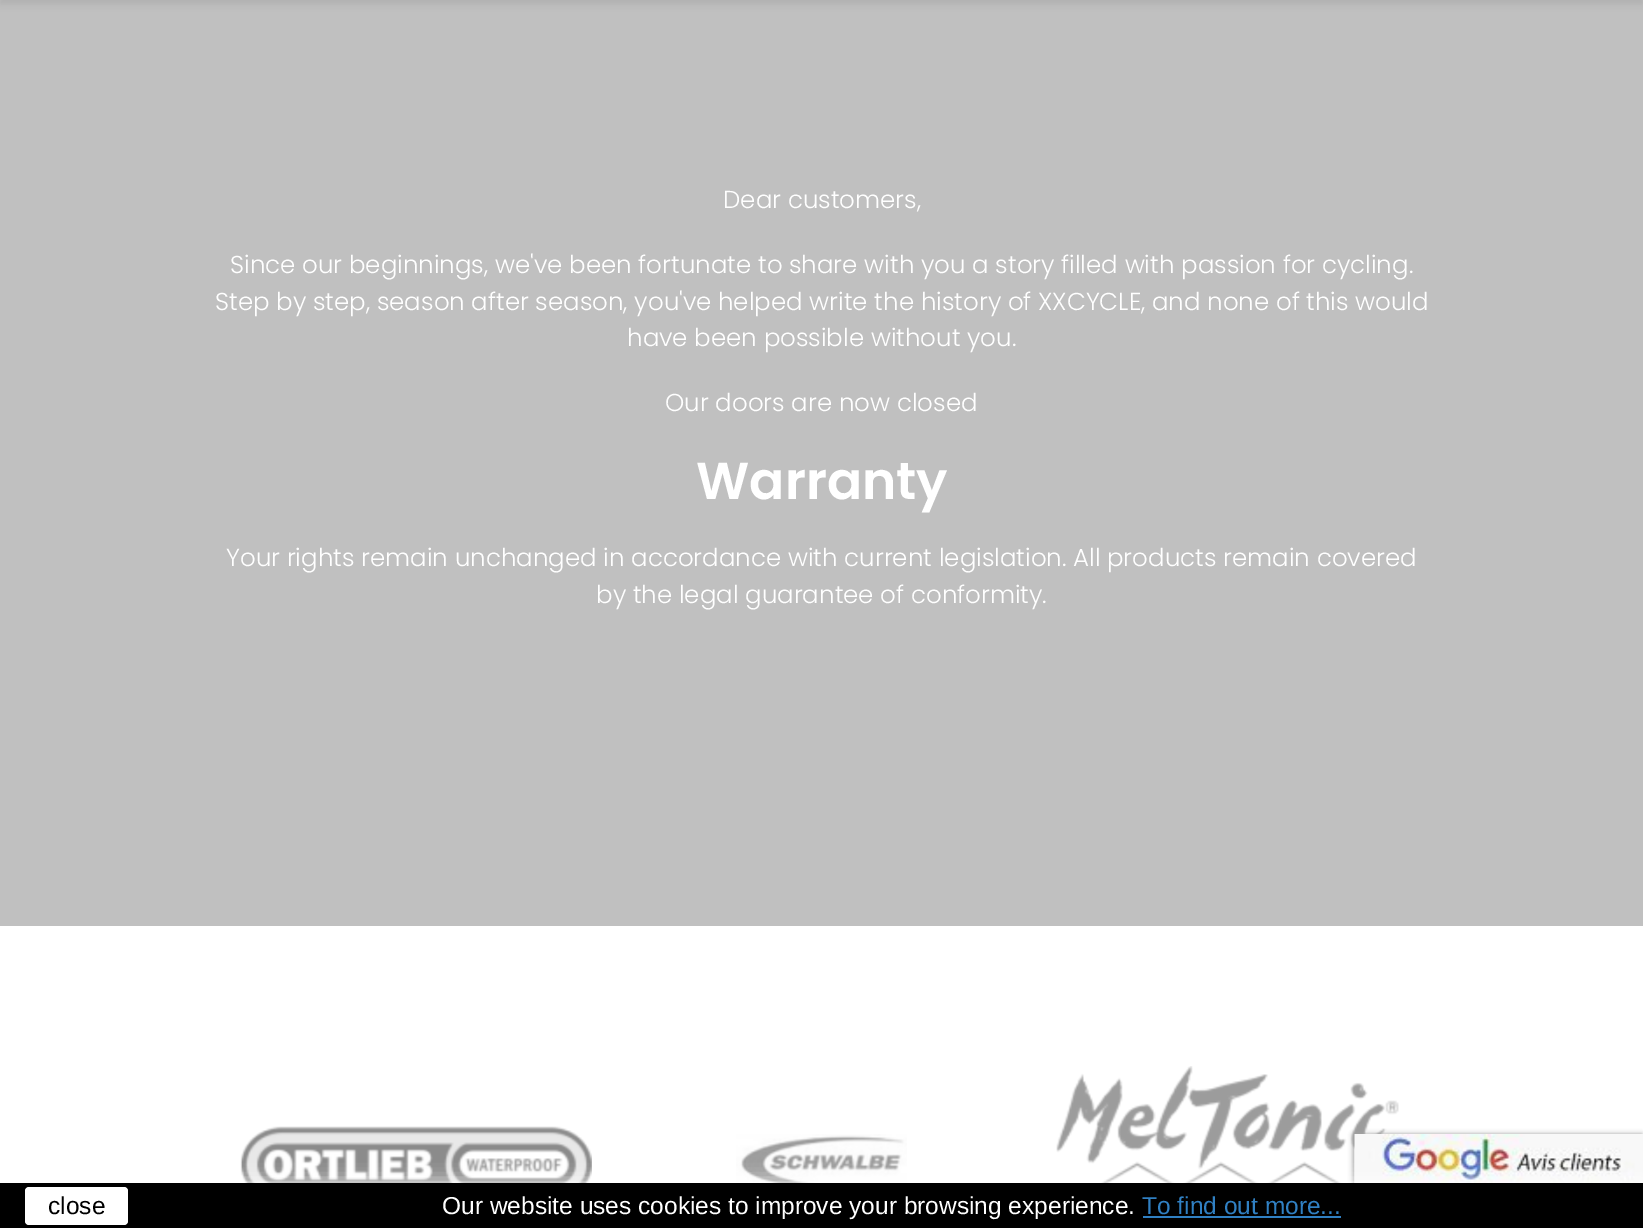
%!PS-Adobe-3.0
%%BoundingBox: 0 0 1643 1228
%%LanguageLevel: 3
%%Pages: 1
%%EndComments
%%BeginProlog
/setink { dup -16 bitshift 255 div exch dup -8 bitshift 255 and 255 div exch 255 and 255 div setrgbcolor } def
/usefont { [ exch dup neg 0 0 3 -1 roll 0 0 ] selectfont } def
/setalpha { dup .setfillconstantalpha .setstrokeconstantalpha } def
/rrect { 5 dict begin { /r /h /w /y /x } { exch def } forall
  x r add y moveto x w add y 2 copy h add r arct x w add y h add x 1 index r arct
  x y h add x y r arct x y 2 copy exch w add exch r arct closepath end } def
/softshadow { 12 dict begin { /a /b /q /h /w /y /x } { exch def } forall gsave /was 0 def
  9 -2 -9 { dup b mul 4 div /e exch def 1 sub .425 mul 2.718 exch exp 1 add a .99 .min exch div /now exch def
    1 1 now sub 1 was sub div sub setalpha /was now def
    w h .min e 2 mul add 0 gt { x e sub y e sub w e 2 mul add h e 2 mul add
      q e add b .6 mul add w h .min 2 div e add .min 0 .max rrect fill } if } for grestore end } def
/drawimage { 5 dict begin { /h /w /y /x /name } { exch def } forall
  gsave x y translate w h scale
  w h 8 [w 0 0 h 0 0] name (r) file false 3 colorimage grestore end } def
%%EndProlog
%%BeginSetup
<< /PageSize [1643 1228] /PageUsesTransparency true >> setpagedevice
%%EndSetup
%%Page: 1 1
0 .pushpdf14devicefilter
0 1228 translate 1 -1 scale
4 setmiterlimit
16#FFFFFF setink
0 0 1643 1228 rectfill
16#C0C0C0 setink
0 0 1643 926 rectfill
16#000000 setink
0 -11 1643 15 0 3.5 0.07 softshadow
/Poppins-Light 24.5 usefont
16#FFFFFF setink
[
    [(Dear customers,) 723 208]
    [(Since our beginnings, we've been fortunate to share with you a story filled with passion for cycling.) 230 273]
    [(Step by step, season after season, you've helped write the history of XXCYCLE, and none of this would) 215 310]
    [(have been possible without you.) 627 346]
    [(Our doors are now closed) 665 411]
] { aload pop moveto show } forall
/Poppins-SemiBold 52 usefont
696 499 moveto (Warranty) show
/Poppins-Light 24.5 usefont
226 566 moveto (Your rights remain unchanged in accordance with current legislation. All products remain covered) show
596 603 moveto (by the legal guarantee of conformity.) show
(img1.raw) 240 1126 352 57 drawimage
(img2.raw) 736 1134 171 49 drawimage
(img3.raw) 1056 1066 343 117 drawimage
16#A2A2A2 setink
1353 1134 289 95 0 2.5 1 softshadow
(img4.raw) 1354 1134 289 49 drawimage
16#FFFFFF setink
0 1183 1643 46 0 9 1 softshadow
16#000000 setink
0 1183 1643 45 rectfill
16#FFFFFF setink
25 1187 103 38 4 rrect fill
/LiberationSans-Regular 24.5 usefont
16#000000 setink
48 1214 moveto (close) show
16#FFFFFF setink
442 1214 moveto (Our website uses cookies to improve your browsing experience.) show
16#3080C3 setink
1142 1214 moveto (To find out more...) show
1143 1216 198 2 rectfill
.poppdf14devicefilter showpage
%%EOF
